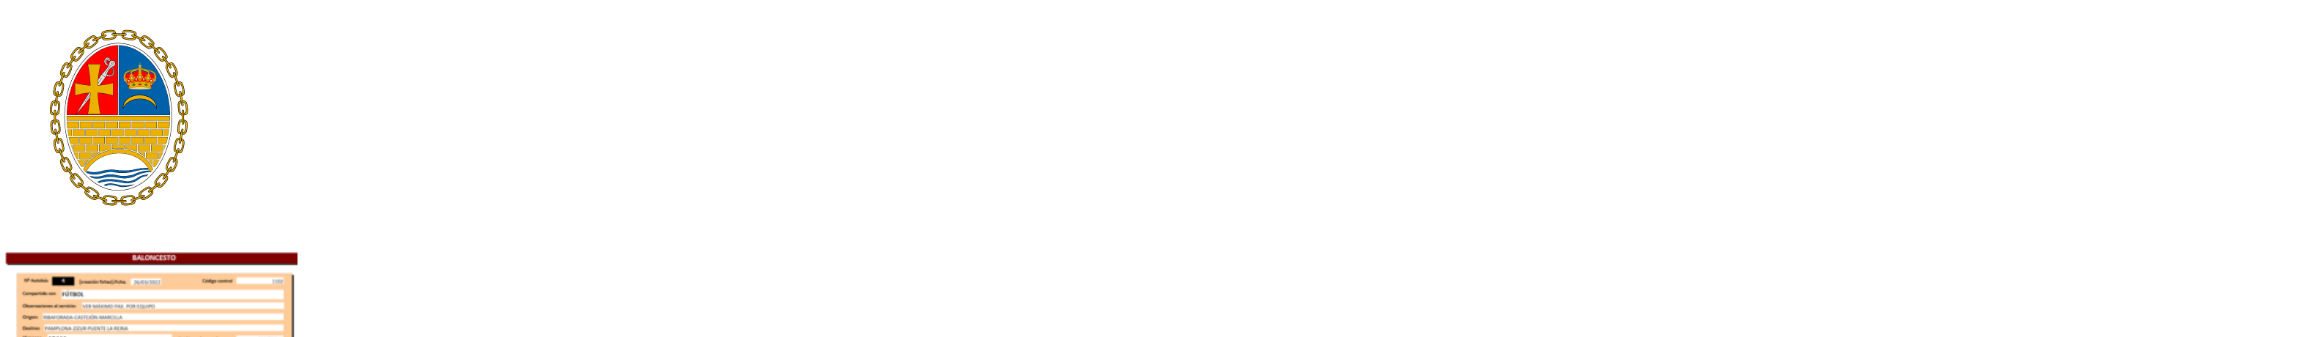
%!PS-Adobe-3.0
%%BoundingBox: 0 0 2299 337
%%LanguageLevel: 3
%%Pages: 1
%%EndComments
%%BeginProlog
/setink { dup -16 bitshift 255 div exch dup -8 bitshift 255 and 255 div exch 255 and 255 div setrgbcolor } def
/drawimage { 5 dict begin { /h /w /y /x /name } { exch def } forall
  gsave x y translate w h scale
  w h 8 [w 0 0 h 0 0] name (r) file false 3 colorimage grestore end } def
%%EndProlog
%%BeginSetup
<< /PageSize [2299 337] >> setpagedevice
%%EndSetup
%%Page: 1 1
0 337 translate 1 -1 scale
4 setmiterlimit
16#FFFFFF setink
0 0 2299 337 rectfill
(img1.raw) 50 29 139 177 drawimage
(img2.raw) 4 251 294 86 drawimage
showpage
%%EOF
